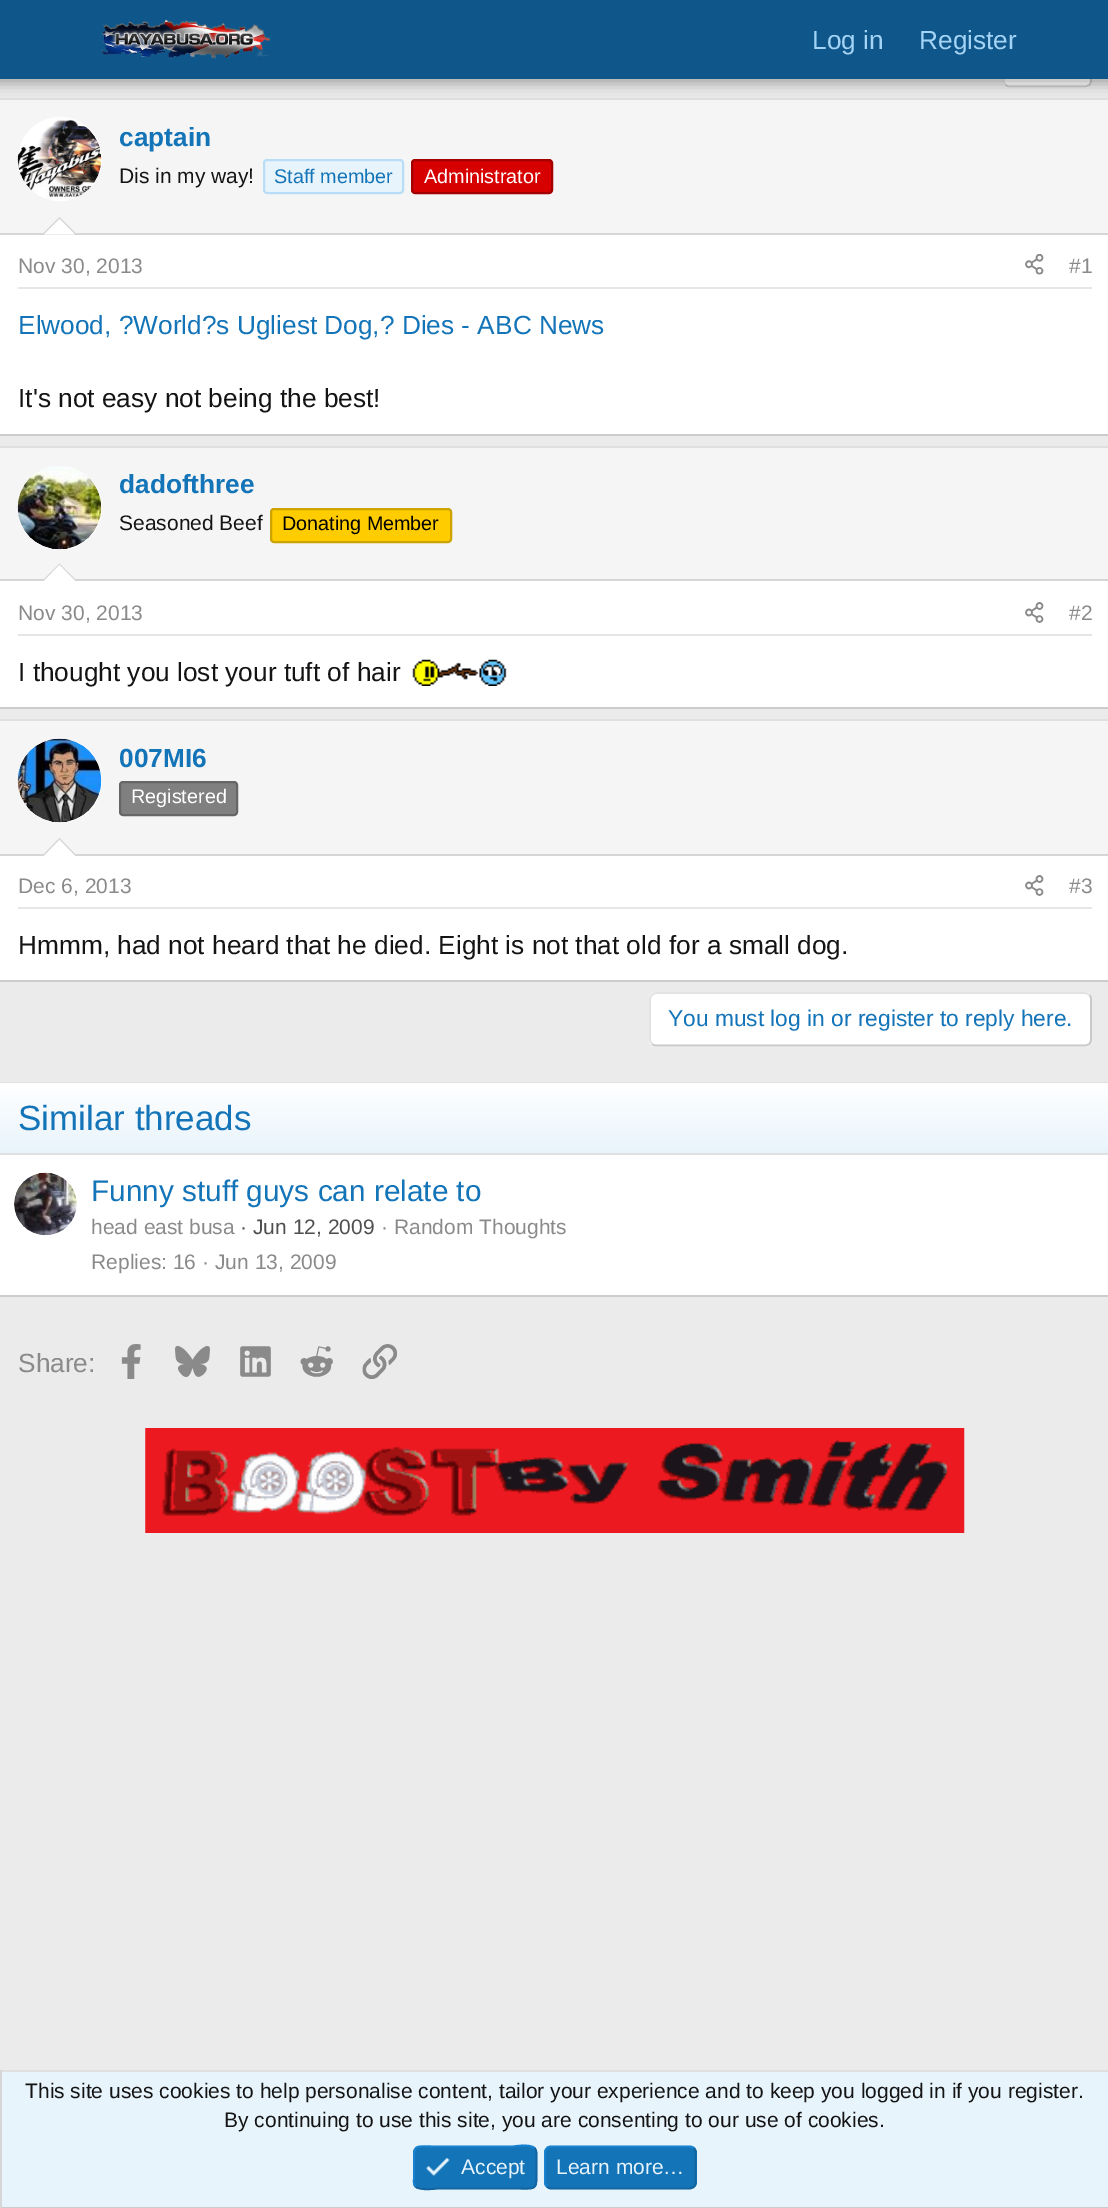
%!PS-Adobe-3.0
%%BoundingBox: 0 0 1108 2208
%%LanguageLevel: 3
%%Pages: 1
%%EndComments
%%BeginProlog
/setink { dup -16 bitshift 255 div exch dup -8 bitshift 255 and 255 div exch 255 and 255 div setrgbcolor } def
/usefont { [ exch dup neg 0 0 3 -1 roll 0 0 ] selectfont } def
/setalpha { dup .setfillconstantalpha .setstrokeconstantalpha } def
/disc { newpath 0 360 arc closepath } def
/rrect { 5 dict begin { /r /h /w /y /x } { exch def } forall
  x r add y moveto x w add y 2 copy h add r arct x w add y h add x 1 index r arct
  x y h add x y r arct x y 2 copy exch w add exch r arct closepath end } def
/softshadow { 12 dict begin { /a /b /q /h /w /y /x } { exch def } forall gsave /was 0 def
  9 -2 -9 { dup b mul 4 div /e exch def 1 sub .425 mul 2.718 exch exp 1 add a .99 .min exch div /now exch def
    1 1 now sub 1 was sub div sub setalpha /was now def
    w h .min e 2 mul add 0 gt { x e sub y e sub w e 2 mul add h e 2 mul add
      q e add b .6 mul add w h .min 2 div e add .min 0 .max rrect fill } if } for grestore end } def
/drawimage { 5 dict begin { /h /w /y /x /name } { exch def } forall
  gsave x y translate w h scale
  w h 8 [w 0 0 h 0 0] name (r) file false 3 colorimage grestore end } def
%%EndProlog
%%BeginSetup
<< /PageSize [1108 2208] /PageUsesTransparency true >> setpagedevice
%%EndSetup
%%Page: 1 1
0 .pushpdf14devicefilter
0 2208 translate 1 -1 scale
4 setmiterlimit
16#EBEBEB setink
0 0 1108 2208 rectfill
16#FFFFFF setink
1003 35 89 53 7 rrect fill
16#C9C9C9 setink
1.8 setlinewidth
1089.5 37.5 moveto 1090.5 39 1091 40.5 1091 42 curveto 1091 80.5 lineto 1091 82 1090.5 83.5 1089.5 85 curveto 1088 86 1086.5 86.5 1085 86.5 curveto 1010 86.5 lineto 1008 86.5 1006.5 86 1005.5 85 curveto stroke
16#E3E3E3 setink
1005.5 85 moveto 1004.5 83.5 1003.5 82 1003.5 80.5 curveto 1003.5 42 lineto 1003.5 40.5 1004.5 39 1005.5 37.5 curveto 1006.5 36.5 1008 36 1010 36 curveto 1085 36 lineto 1086.5 36 1088 36.5 1089.5 37.5 curveto stroke
16#E0E0E0 setink
0 98 1108 2 rectfill
16#F5F5F5 setink
0 100 1108 133 rectfill
16#000000 setink
-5 -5 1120 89 0 7 0.3 softshadow
16#0F578A setink
0 0 1108 79 rectfill
(img1.raw) 101 19 170 40 drawimage
/LiberationSans-Regular 26.25 usefont
16#A3D4F5 setink
812 49 moveto (Log in) show
919 49 moveto (Register) show
[
    [0 235 1108 199 16#FFFFFF]
    [0 434 1108 2 16#CCCCCC]
    [0 233 1108 2 16#D6D6D6]
] { aload pop setink rectfill } forall
16#FFFFFF setink
60 159 42 disc fill
(img2.raw) 17 118 85 82 drawimage
/LiberationSans-Bold 26.25 usefont
16#1474B8 setink
119 146 moveto (captain) show
/LiberationSans-Regular 21 usefont
16#141414 setink
119 183 moveto (Dis in my way!) show
16#E8F4FC setink
264 160 139 33 3 rrect gsave fill grestore
16#BADDF7 setink
2 setlinewidth
stroke
/LiberationSans-Regular 19.75 usefont
16#1474B8 setink
274 183 moveto (Staff member) show
16#D60000 setink
412 160 140 33 3 rrect gsave fill grestore
16#A30000 setink
stroke
16#FFFFFF setink
424 183 moveto (Administrator) show
16#D6D6D6 setink
77 234.5 moveto 42 234.5 lineto 59.5 217 lineto closepath fill
16#FFFFFF setink
75 234.5 moveto 44 234.5 lineto 59.5 219 lineto closepath fill
16#E6E6E6 setink
18 287 1074 2 rectfill
/LiberationSans-Regular 21 usefont
16#8A8A8A setink
18 273 moveto (Nov 30, 2013) show
(img3.raw) 1025 254 19 21 drawimage
1069 273 moveto (#1) show
/LiberationSans-Regular 26.25 usefont
16#1474B8 setink
18 334 moveto (Elwood, ?World?s Ugliest Dog,? Dies - ABC News) show
16#141414 setink
18 407 moveto (It's not easy not being the best!) show
[
    [0 581 1108 126 16#FFFFFF]
    [0 446 1108 2 16#E0E0E0]
    [0 707 1108 2 16#CCCCCC]
    [0 448 1108 131 16#F5F5F5]
    [0 579 1108 2 16#D6D6D6]
] { aload pop setink rectfill } forall
16#FFFFFF setink
60 508 42 disc fill
(img4.raw) 17 466 85 84 drawimage
/LiberationSans-Bold 26.25 usefont
16#1474B8 setink
119 493 moveto (dadofthree) show
/LiberationSans-Regular 21 usefont
16#141414 setink
119 530 moveto (Seasoned Beef) show
16#FFCC00 setink
271 509 180 33 3 rrect gsave fill grestore
16#CCA300 setink
stroke
/LiberationSans-Regular 19.75 usefont
16#000000 setink
282 530 moveto (Donating Member) show
16#D6D6D6 setink
77 581 moveto 42 581 lineto 59.5 563.5 lineto closepath fill
16#FFFFFF setink
75 581 moveto 44 581 lineto 59.5 565 lineto closepath fill
16#E6E6E6 setink
18 634 1074 2 rectfill
/LiberationSans-Regular 21 usefont
16#8A8A8A setink
18 620 moveto (Nov 30, 2013) show
(img5.raw) 1025 602 19 21 drawimage
1069 620 moveto (#2) show
/LiberationSans-Regular 26.25 usefont
16#141414 setink
18 681 moveto (I thought you lost your tuft of hair) show
(img6.raw) 412 659 95 27 drawimage
[
    [0 856 1108 124 16#FFFFFF]
    [0 719 1108 2 16#E0E0E0]
    [0 980 1108 2 16#CCCCCC]
    [0 721 1108 133 16#F5F5F5]
    [0 854 1108 2 16#D6D6D6]
] { aload pop setink rectfill } forall
16#FFFFFF setink
60 781 42 disc fill
(img7.raw) 17 738 85 85 drawimage
/LiberationSans-Bold 26.25 usefont
16#1474B8 setink
119 767 moveto (007MI6) show
16#808080 setink
120 782 117 33 3 rrect gsave fill grestore
16#666666 setink
stroke
/LiberationSans-Regular 19.75 usefont
16#FFFFFF setink
131 803 moveto (Registered) show
16#D6D6D6 setink
77 856 moveto 42 856 lineto 59.5 838 lineto closepath fill
16#FFFFFF setink
75 856 moveto 44 856 lineto 59.5 840 lineto closepath fill
16#E6E6E6 setink
18 907 1074 2 rectfill
/LiberationSans-Regular 21 usefont
16#8A8A8A setink
18 893 moveto (Dec 6, 2013) show
(img5.raw) 1025 875 19 21 drawimage
1069 893 moveto (#3) show
/LiberationSans-Regular 26.25 usefont
16#141414 setink
18 954 moveto (Hmmm, had not heard that he died. Eight is not that old for a small dog.) show
16#FFFFFF setink
649 992 443 55 7 rrect fill
16#C9C9C9 setink
1.8 setlinewidth
1089.5 995 moveto 1090.5 996 1091 997.5 1091 999 curveto 1091 1039.5 lineto 1091 1041 1090.5 1042.5 1089.5 1044 curveto 1088 1045 1086.5 1045.5 1085 1045.5 curveto 656 1045.5 lineto 654.5 1045.5 653 1045 652 1044 curveto stroke
16#E3E3E3 setink
652 1044 moveto 651 1042.5 650 1041 650 1039.5 curveto 650 999 lineto 650 997.5 651 996 652 995 curveto 653 994 654.5 993 656 993 curveto 1085 993 lineto 1086.5 993 1088 994 1089.5 995 curveto stroke
/LiberationSans-Regular 22.75 usefont
16#1474B8 setink
668 1026 moveto (You must log in or register to reply here.) show
[
    [0 1155 1108 140 16#FFFFFF]
    [0 1082 1108 1 16#E0E0E0]
    [0 1295 1108 2 16#CCCCCC]
] { aload pop setink rectfill } forall
gsave 0 1083 moveto 1108 1083 lineto 1108 1153 lineto 0 1153 lineto closepath clip newpath
<< /ShadingType 2 /ColorSpace /DeviceRGB /Coords [555 1153 555 1083] /Extend [true true] /Function << /FunctionType 2 /Domain [0 1] /C0 [0.91 0.957 0.988] /C1 [1 1 1] /N 1 >> >> shfill grestore
16#E0E0E0 setink
0 1153 1108 2 rectfill
/LiberationSans-Regular 35 usefont
16#1474B8 setink
18 1130 moveto (Similar threads) show
(img8.raw) 14 1172 63 64 drawimage
/LiberationSans-Regular 29.75 usefont
91 1201 moveto (Funny stuff guys can relate to) show
/LiberationSans-Regular 21 usefont
16#8A8A8A setink
91 1234 moveto (head east busa) show
16#4F4F4F setink
240 1234 moveto (· Jun 12, 2009) show
16#8A8A8A setink
[
    [(· Random Thoughts) 381 1234]
    [(Replies: 16) 91 1269]
    [(· Jun 13, 2009) 202 1269]
] { aload pop moveto show } forall
/LiberationSans-Regular 26.25 usefont
18 1372 moveto (Share:) show
(img9.raw) 121 1344 20 35 drawimage
(img10.raw) 175 1346 35 31 drawimage
(img11.raw) 240 1346 31 31 drawimage
(img12.raw) 300 1346 33 31 drawimage
(img13.raw) 362 1344 35 35 drawimage
(img14.raw) 145 1428 820 105 drawimage
[
    [2 2072 1106 135 16#E8F4FC]
    [0 2070 1108 2 16#E0E0E0]
    [0 2207 1108 1 16#CCCCCC]
    [0 2070 2 138 16#D6D6D6]
] { aload pop setink rectfill } forall
/LiberationSans-Regular 21 usefont
16#141414 setink
25 2098 moveto (This site uses cookies to help personalise content, tailor your experience and to keep you logged in if you register.) show
224 2127 moveto (By continuing to use this site, you are consenting to our use of cookies.) show
16#1474B8 setink
413 2146 124 43 7 rrect fill
16#1265A1 setink
534.5 2148 moveto 537 2150.5 536.5 2154.5 536.5 2157.5 curveto 536.5 2167.5 lineto 536.5 2192 538.5 2188.5 512 2188.5 curveto 438.5 2188.5 lineto 436.5 2188.5 420 2191 415.5 2186.5 curveto stroke
16#1782CF setink
415.5 2186.5 moveto 413 2184 414 2180.5 414 2177.5 curveto 414 2167.5 lineto 414 2142.5 412 2146.5 438.5 2146.5 curveto 512 2146.5 lineto 513.5 2146.5 530 2143.5 534.5 2148 curveto stroke
(img15.raw) 426 2158 24 19 drawimage
16#E8F4FC setink
461 2174 moveto (Accept) show
16#1474B8 setink
544 2146 153 43 7 rrect fill
16#1265A1 setink
694 2148 moveto 695 2149.5 695.5 2151 695.5 2152.5 curveto 695.5 2182 lineto 695.5 2184 695 2185.5 694 2186.5 curveto 692.5 2187.5 691 2188.5 689.5 2188.5 curveto 551 2188.5 lineto 549.5 2188.5 548 2187.5 547 2186.5 curveto stroke
16#1782CF setink
547 2186.5 moveto 546 2185.5 545 2184 545 2182 curveto 545 2152.5 lineto 545 2151 546 2149.5 547 2148 curveto 548 2147 549.5 2146.5 551 2146.5 curveto 689.5 2146.5 lineto 691 2146.5 692.5 2147 694 2148 curveto stroke
16#E8F4FC setink
556 2174 moveto (Learn more…) show
.poppdf14devicefilter showpage
%%EOF
